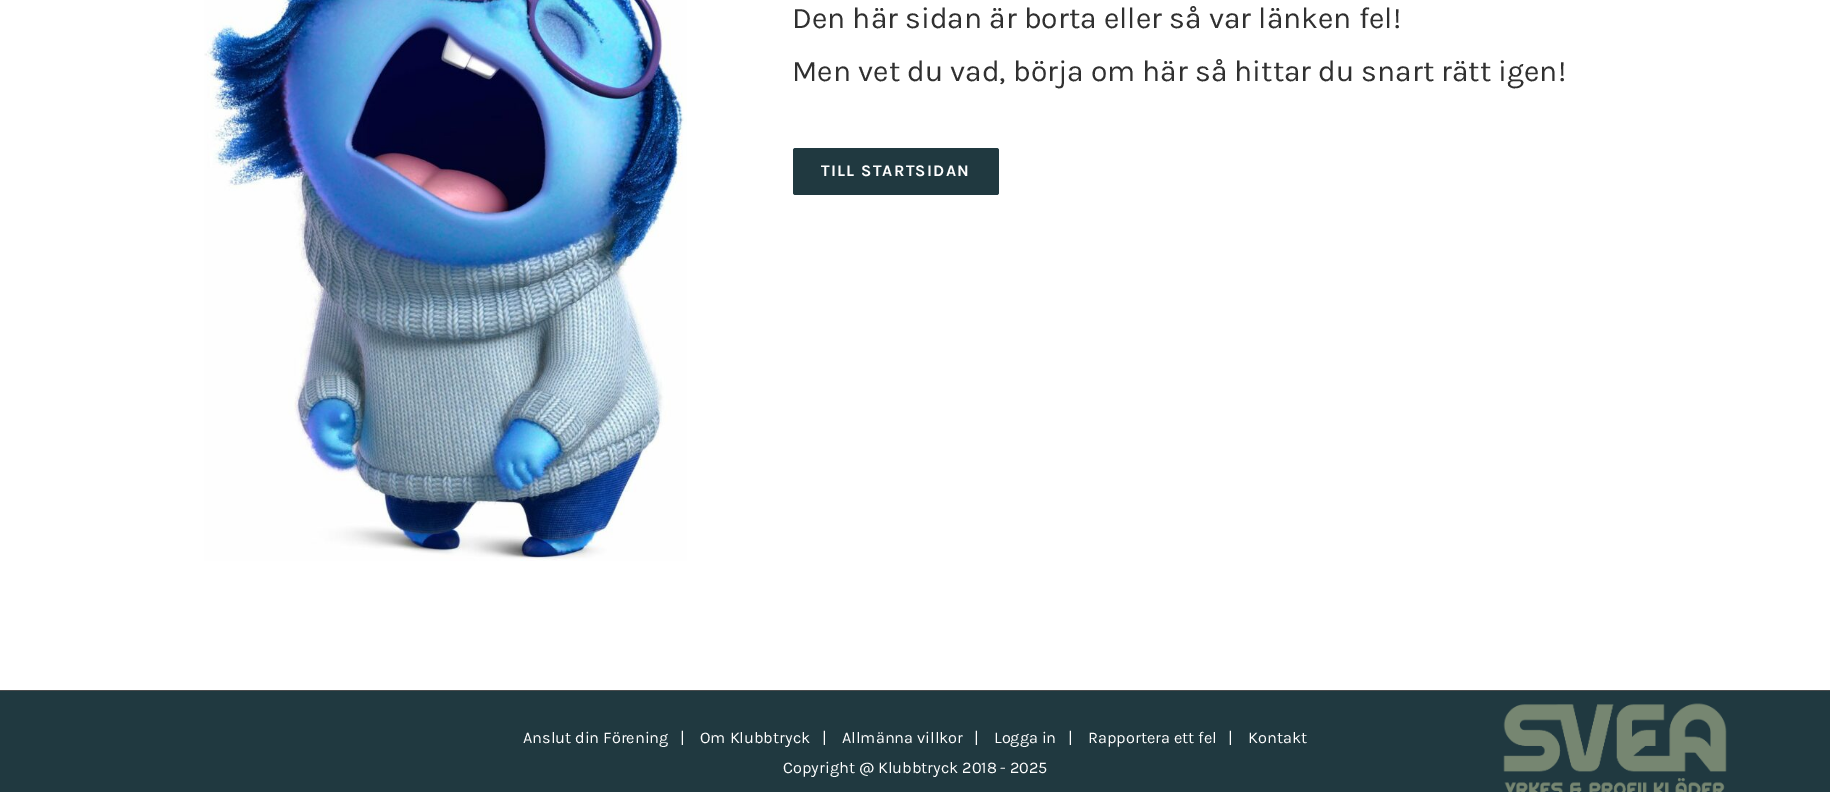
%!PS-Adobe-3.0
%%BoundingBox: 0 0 1830 792
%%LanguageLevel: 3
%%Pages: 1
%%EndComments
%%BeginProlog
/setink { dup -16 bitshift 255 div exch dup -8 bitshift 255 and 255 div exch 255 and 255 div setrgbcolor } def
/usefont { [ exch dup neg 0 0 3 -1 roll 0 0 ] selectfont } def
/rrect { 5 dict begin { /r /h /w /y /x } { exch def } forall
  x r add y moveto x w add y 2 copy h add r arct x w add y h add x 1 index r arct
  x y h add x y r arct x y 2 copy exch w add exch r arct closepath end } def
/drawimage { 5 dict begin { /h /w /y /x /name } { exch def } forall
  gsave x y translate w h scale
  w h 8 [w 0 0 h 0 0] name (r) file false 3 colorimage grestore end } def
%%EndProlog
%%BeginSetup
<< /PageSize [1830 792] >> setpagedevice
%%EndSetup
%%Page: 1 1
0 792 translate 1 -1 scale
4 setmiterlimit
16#FFFFFF setink
0 0 1830 792 rectfill
(img1.raw) 204 0 483 561 drawimage
/Karla-Regular 30 usefont
16#303030 setink
792 28 moveto (Den här sidan är borta eller så var länken fel!) show
792 81 moveto (Men vet du vad, börja om här så hittar du snart rätt igen!) show
16#203940 setink
793 148 206 47 2.5 rrect fill
/Karla-Bold 16.25 usefont
16#FFFFFF setink
821 176 moveto 1.25 0 (TILL STARTSIDAN) ashow
16#203940 setink
0 691 1830 101 rectfill
16#4B4C4D setink
0 690 1830 1 rectfill
/Karla-Regular 16.25 usefont
16#FFFFFF setink
[
    [(Anslut din Förening) 523 743]
    [(|) 680 743]
    [(Om Klubbtryck) 700 743]
    [(|) 822 743]
    [(Allmänna villkor) 842 743]
    [(|) 974 743]
    [(Logga in) 994 743]
    [(|) 1068 743]
    [(Rapportera ett fel) 1088 743]
    [(|) 1228 743]
    [(Kontakt) 1248 743]
] { aload pop moveto show } forall
(img2.raw) 1503 703 224 89 drawimage
783 773 moveto (Copyright @ Klubbtryck 2018 - 2025) show
showpage
%%EOF
